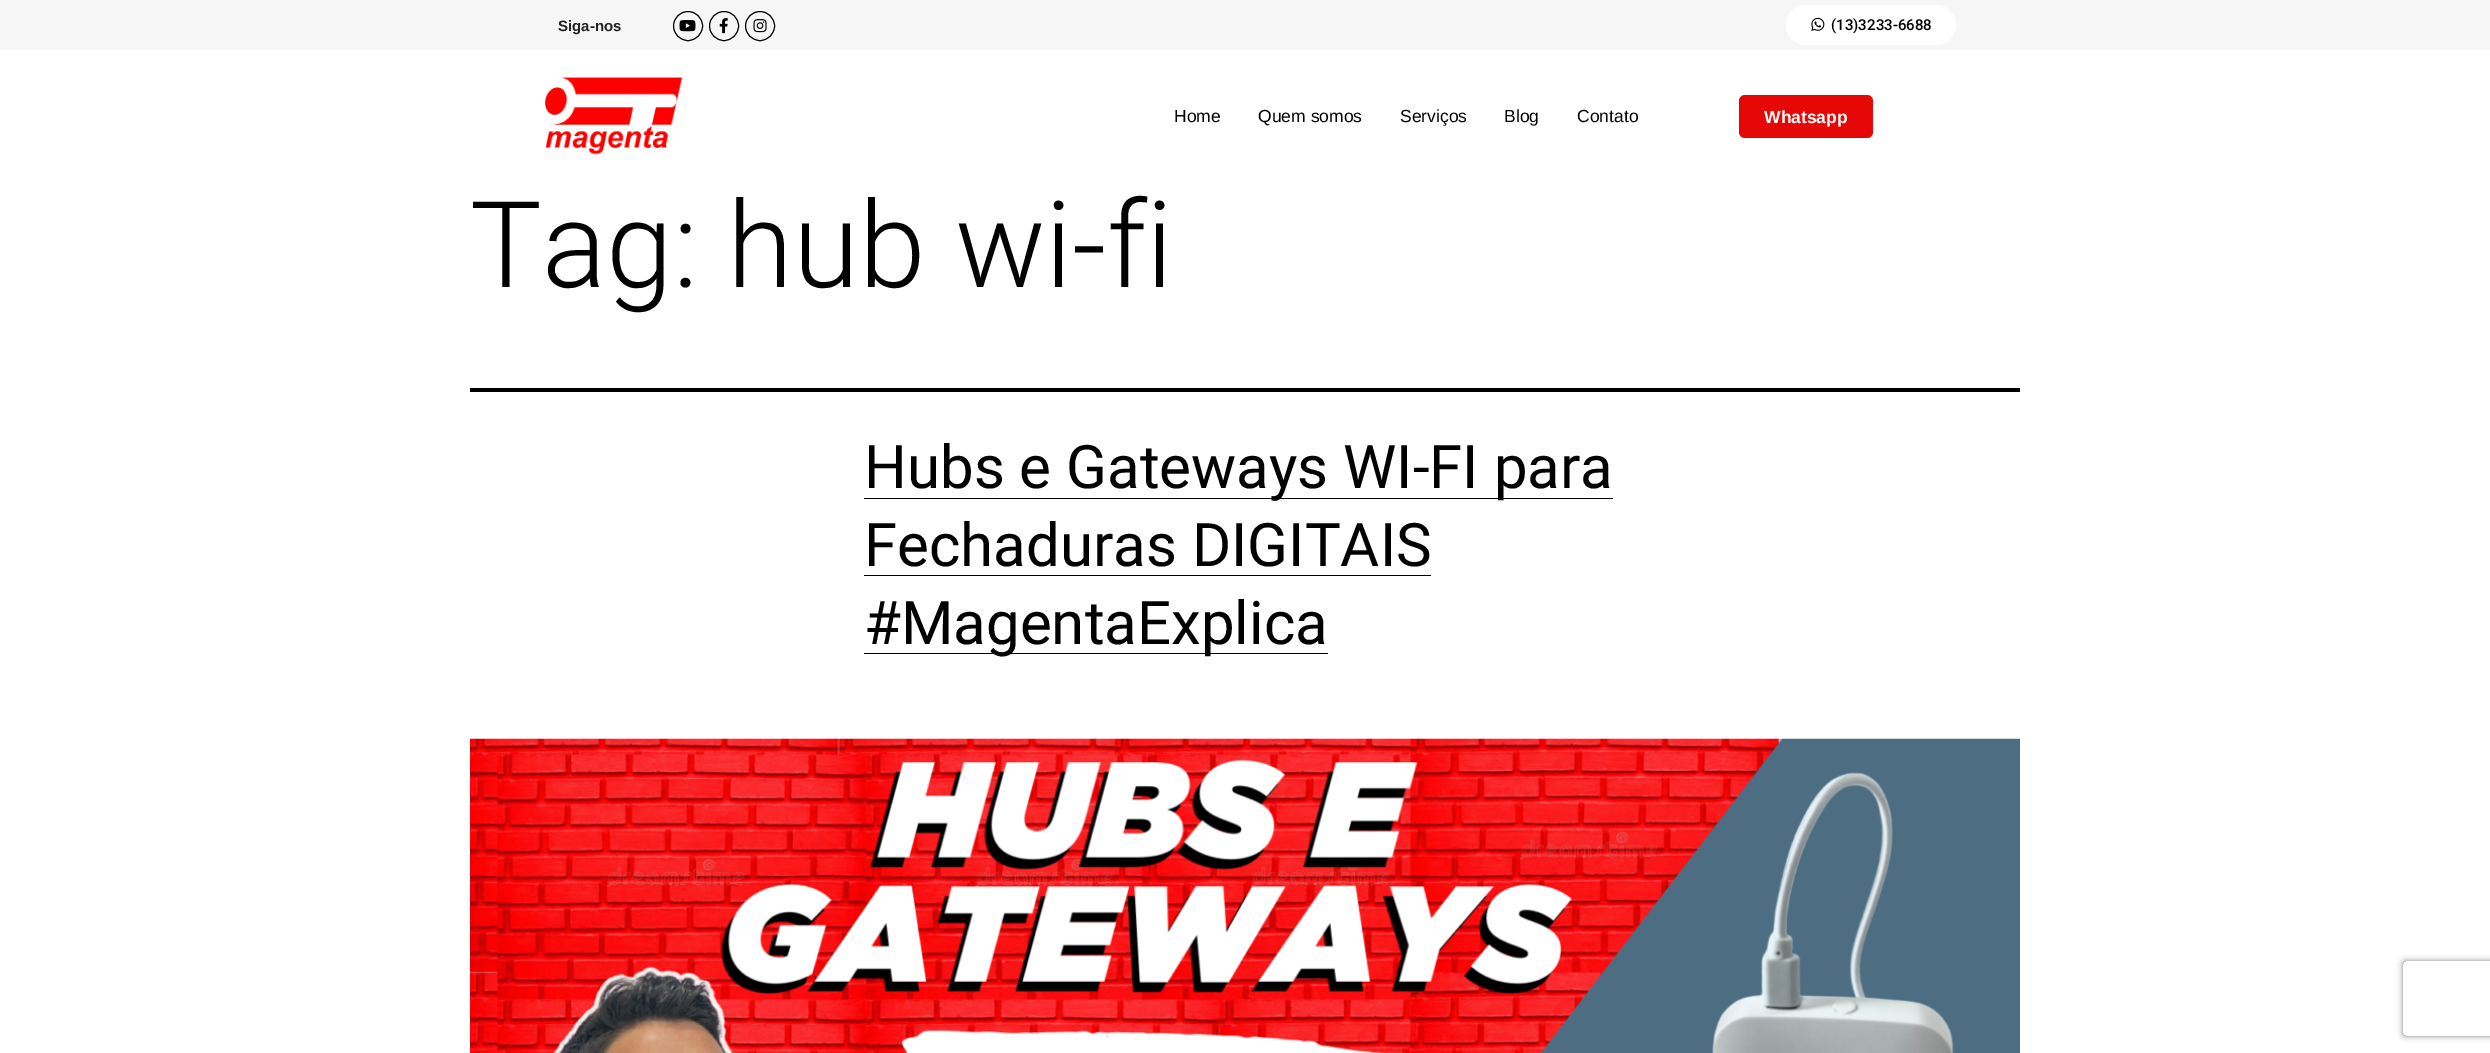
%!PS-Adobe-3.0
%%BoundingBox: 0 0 2490 1053
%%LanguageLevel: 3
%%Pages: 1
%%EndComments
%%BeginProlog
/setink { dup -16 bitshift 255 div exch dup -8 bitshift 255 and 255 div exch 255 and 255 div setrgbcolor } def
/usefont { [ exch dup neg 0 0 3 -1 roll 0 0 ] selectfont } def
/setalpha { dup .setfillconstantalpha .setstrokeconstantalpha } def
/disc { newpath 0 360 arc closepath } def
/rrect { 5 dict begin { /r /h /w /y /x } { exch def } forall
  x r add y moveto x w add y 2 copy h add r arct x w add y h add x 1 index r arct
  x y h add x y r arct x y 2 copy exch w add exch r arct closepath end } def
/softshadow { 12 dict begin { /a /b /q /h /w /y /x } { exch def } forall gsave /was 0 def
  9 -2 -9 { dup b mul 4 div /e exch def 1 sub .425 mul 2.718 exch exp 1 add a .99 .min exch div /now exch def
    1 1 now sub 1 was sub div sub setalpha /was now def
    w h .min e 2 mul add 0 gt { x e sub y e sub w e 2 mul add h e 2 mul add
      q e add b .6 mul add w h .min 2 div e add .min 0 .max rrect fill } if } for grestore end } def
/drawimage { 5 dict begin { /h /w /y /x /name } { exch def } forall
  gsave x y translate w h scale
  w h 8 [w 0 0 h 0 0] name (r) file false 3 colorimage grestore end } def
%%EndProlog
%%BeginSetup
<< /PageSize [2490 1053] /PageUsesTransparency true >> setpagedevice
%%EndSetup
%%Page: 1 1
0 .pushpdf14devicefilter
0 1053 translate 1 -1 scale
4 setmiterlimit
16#FFFFFF setink
0 0 2490 1053 rectfill
16#F6F6F6 setink
0 0 2490 50 rectfill
/LiberationSans-Bold 15 usefont
16#222222 setink
558 31 moveto (Siga-nos) show
16#000000 setink
688 26 14.5 disc stroke
(img1.raw) 679 20 17 12 drawimage
724 26 14.5 disc stroke
(img2.raw) 719 18 9 16 drawimage
760 26 14.5 disc stroke
(img3.raw) 753 19 14 14 drawimage
16#FFFFFF setink
1786 5 170 40 20 rrect fill
(img4.raw) 1811 17 14 14 drawimage
/Roboto-Medium 15 usefont
16#000000 setink
1831 30 moveto (\(13\)3233-6688) show
(img5.raw) 545 77 138 78 drawimage
/LiberationSans-Regular 17.5 usefont
[
    [(Home) 1174 122]
    [(Quem somos) 1258 122]
    [(Serviços) 1400 122]
    [(Blog) 1504 122]
    [(Contato) 1577 122]
] { aload pop moveto show } forall
16#E60707 setink
1739 95 134 43 6 rrect fill
/LiberationSans-Bold 17.5 usefont
16#FFFFFF setink
1764 123 moveto (Whatsapp) show
16#000000 setink
470 388 1550 4 rectfill
/Roboto-Light 120 usefont
470 287 moveto (Tag: hub wi-fi) show
864 498 749 1 rectfill
/Roboto-Regular 60 usefont
864 488 moveto (Hubs e Gateways WI-FI para) show
864 566 moveto (Fechaduras DIGITAIS) show
864 575 567 1 rectfill
864 653 464 1 rectfill
864 644 moveto (#MagentaExplica) show
(img6.raw) 470 738 1550 315 drawimage
gsave
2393 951 moveto 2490 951 lineto 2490 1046 lineto 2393 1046 lineto closepath 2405.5 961 moveto 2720.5 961 lineto 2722 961 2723 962 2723 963.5 curveto 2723 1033.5 lineto 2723 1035 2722 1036 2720.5 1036 curveto 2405.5 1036 lineto 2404 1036 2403 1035 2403 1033.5 curveto 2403 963.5 lineto 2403 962 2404 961 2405.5 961 curveto closepath eoclip newpath
16#808080 setink
2403 961 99 75 2.5 3 1 softshadow
grestore
.poppdf14devicefilter showpage
%%EOF
